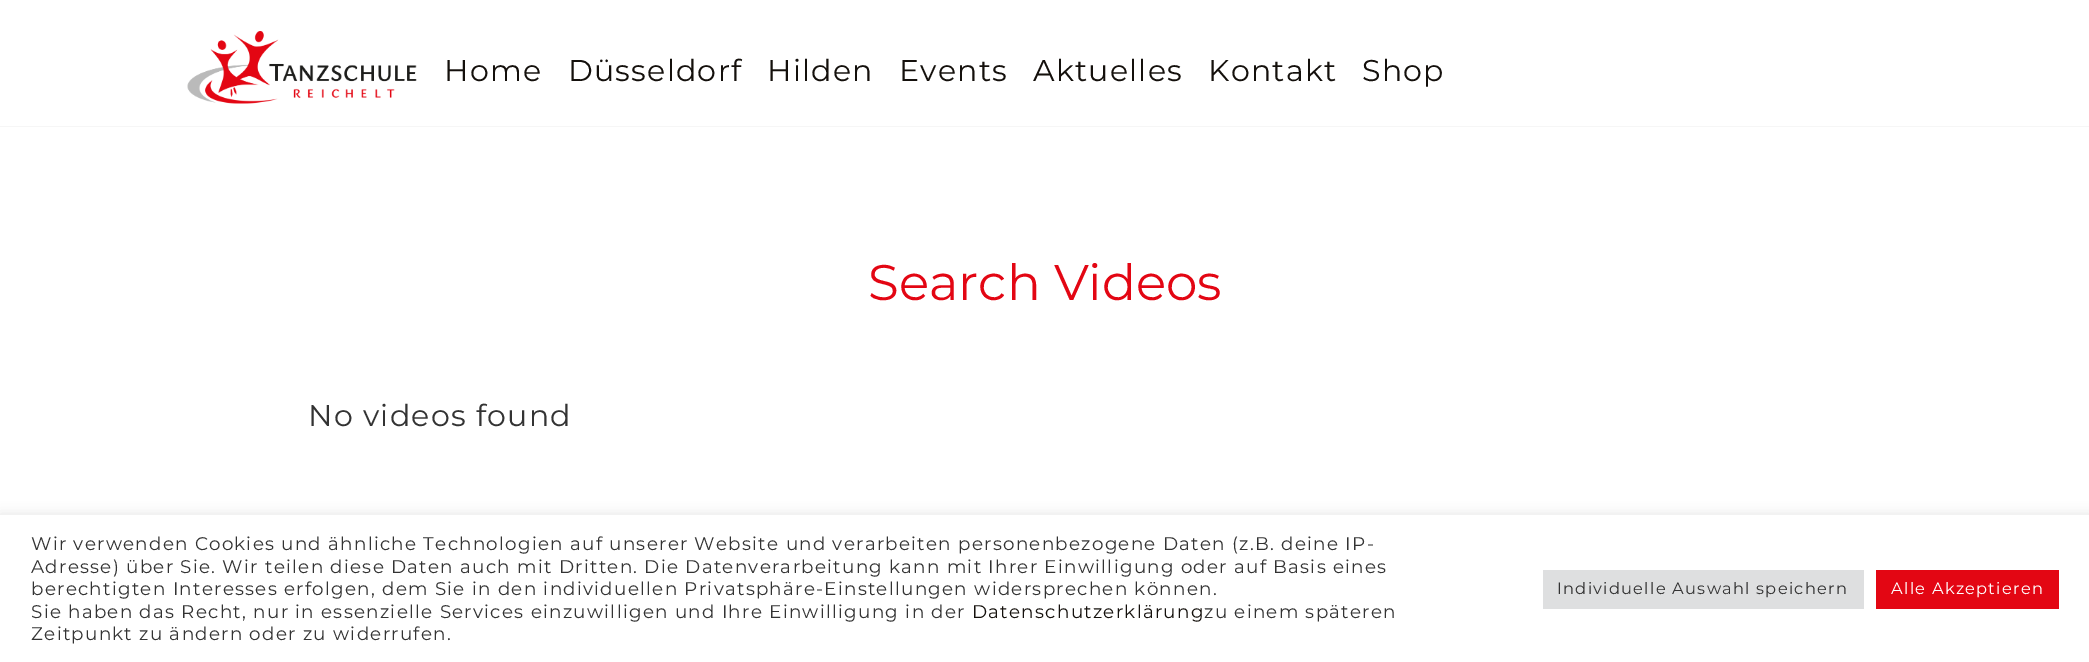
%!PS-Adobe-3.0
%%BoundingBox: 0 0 2089 662
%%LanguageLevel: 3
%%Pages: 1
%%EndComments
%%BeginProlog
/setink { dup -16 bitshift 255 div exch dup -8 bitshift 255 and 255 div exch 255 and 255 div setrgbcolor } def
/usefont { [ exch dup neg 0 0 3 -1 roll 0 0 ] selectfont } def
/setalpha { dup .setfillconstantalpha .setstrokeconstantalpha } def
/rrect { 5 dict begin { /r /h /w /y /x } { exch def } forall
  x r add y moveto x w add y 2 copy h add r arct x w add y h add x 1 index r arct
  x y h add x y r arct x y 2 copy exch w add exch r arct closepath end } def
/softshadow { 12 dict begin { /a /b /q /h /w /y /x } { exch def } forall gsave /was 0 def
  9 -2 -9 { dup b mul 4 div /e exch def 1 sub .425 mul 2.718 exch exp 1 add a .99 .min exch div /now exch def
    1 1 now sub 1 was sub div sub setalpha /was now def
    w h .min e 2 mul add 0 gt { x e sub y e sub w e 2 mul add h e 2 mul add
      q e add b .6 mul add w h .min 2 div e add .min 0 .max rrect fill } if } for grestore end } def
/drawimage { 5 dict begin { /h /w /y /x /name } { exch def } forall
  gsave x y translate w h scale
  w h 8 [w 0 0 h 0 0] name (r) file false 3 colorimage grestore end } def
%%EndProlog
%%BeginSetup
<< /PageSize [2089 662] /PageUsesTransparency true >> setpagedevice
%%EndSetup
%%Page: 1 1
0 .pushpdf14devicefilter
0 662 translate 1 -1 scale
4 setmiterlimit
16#FFFFFF setink
0 0 2089 662 rectfill
(img1.raw) 187 31 230 73 drawimage
/Montserrat-Regular 30 usefont
16#14100C setink
444 81 moveto 1.25 0 (Home) ashow
568 81 moveto 1.25 0 (Düsseldorf) ashow
767 81 moveto 1.25 0 (Hilden) ashow
899 81 moveto 1.25 0 (Events) ashow
1033 81 moveto 1.25 0 (Aktuelles) ashow
1208 81 moveto 1.25 0 (Kontakt) ashow
1362 81 moveto 1.25 0 (Shop) ashow
16#F6F6F6 setink
0 126 2089 1 rectfill
/Montserrat-Regular 50 usefont
16#E30613 setink
868 300 moveto (Search Videos) show
/Montserrat-Regular 30 usefont
16#333333 setink
308 426 moveto 1.25 0 (No videos found) ashow
16#ACABAB setink
0 514 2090 147 0 6 0.3 softshadow
16#FFFFFF setink
0 515 2089 147 rectfill
/Montserrat-Regular 18.33 usefont
16#333333 setink
31 550 moveto 1.25 0 (Wir verwenden Cookies und ähnliche Technologien auf unserer Website und verarbeiten personenbezogene Daten \(z.B. deine IP-) ashow
31 573 moveto 1.25 0 (Adresse\) über Sie. Wir teilen diese Daten auch mit Dritten. Die Datenverarbeitung kann mit Ihrer Einwilligung oder auf Basis eines) ashow
31 595 moveto 1.25 0 (berechtigten Interesses erfolgen, dem Sie in den individuellen Privatsphäre-Einstellungen widersprechen können.) ashow
31 618 moveto 1.25 0 (Sie haben das Recht, nur in essenzielle Services einzuwilligen und Ihre Einwilligung in der) ashow
16#14100C setink
972 618 moveto 1.25 0 (Datenschutzerklärung) ashow
16#333333 setink
1204 618 moveto 1.25 0 (zu einem späteren) ashow
31 640 moveto 1.25 0 (Zeitpunkt zu ändern oder zu widerrufen.) ashow
16#DEDFE0 setink
1543 570 321 39 rectfill
/Montserrat-Regular 16.25 usefont
16#333333 setink
1557 594 moveto 1.25 0 (Individuelle Auswahl speichern) ashow
16#E30613 setink
1876 570 183 39 rectfill
16#FFFFFF setink
1891 594 moveto 1.25 0 (Alle Akzeptieren) ashow
.poppdf14devicefilter showpage
%%EOF
